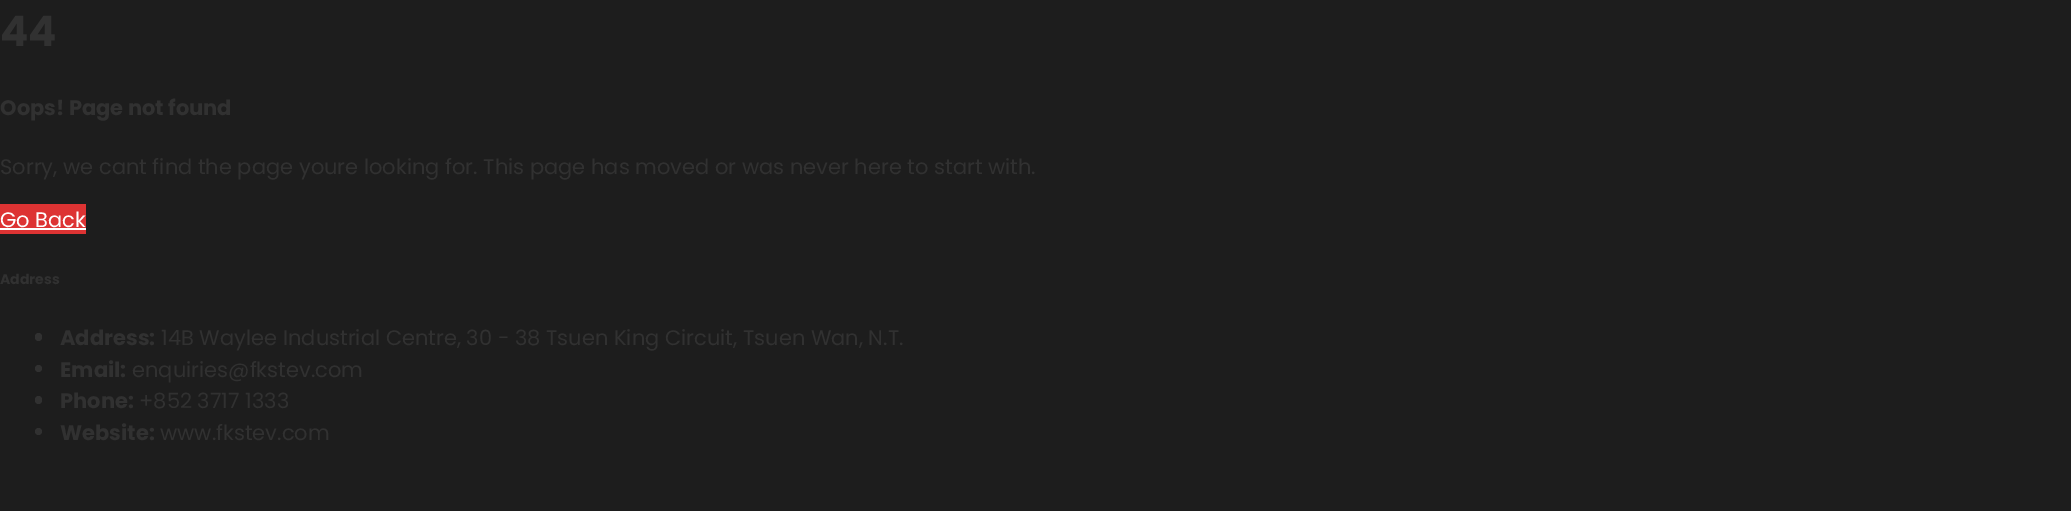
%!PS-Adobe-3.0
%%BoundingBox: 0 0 2071 511
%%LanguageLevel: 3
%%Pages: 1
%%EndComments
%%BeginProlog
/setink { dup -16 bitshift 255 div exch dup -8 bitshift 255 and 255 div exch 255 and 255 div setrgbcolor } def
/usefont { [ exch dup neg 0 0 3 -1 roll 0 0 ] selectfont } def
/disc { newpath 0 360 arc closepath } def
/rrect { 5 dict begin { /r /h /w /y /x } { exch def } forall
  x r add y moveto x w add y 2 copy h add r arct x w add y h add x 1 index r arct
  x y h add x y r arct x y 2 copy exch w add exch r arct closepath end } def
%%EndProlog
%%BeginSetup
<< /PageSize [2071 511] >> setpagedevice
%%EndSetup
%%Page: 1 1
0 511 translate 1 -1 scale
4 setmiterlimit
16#1D1D1D setink
0 0 2071 511 rectfill
/Poppins-Bold 42 usefont
16#313131 setink
0 46 moveto (44) show
/Poppins-Bold 21 usefont
0 115 moveto (Oops! Page not found) show
/Poppins-Regular 21 usefont
0 174 moveto (Sorry, we cant find the page youre looking for. This page has moved or was never here to start with.) show
16#DD3333 setink
0 204 86 30 rectfill
16#FFFFFF setink
0 227 moveto (Go Back) show
0 228 86 2 rectfill
/Poppins-Bold 14 usefont
16#313131 setink
0 284 moveto (Address) show
35 333 7 8 3.5 rrect fill
/Poppins-Bold 21 usefont
60 345 moveto (Address:) show
/Poppins-Regular 21 usefont
161 345 moveto (14B Waylee Industrial Centre, 30 - 38 Tsuen King Circuit, Tsuen Wan, N.T.) show
38.5 368.5 3.5 disc fill
/Poppins-Bold 21 usefont
60 377 moveto (Email:) show
/Poppins-Regular 21 usefont
132 377 moveto (enquiries@fkstev.com) show
35 396 7 8 3.5 rrect fill
/Poppins-Bold 21 usefont
60 408 moveto (Phone:) show
/Poppins-Regular 21 usefont
139 408 moveto (+852 3717 1333) show
38.5 431.5 3.5 disc fill
/Poppins-Bold 21 usefont
60 440 moveto (Website:) show
/Poppins-Regular 21 usefont
160 440 moveto (www.fkstev.com) show
showpage
%%EOF
